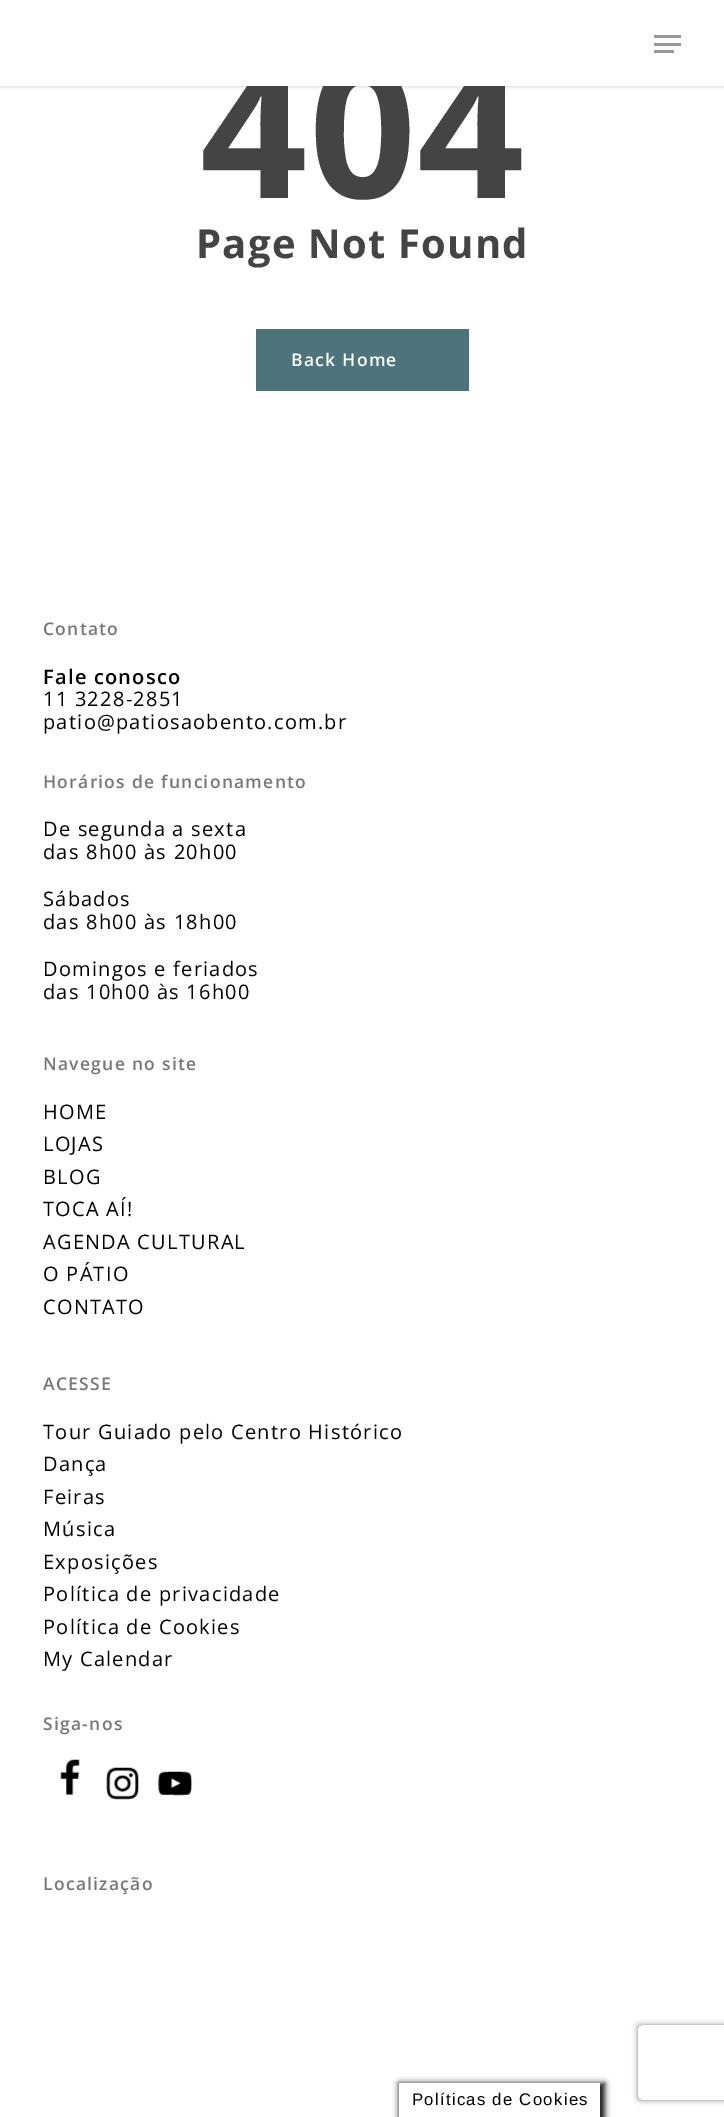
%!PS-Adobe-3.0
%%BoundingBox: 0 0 724 2117
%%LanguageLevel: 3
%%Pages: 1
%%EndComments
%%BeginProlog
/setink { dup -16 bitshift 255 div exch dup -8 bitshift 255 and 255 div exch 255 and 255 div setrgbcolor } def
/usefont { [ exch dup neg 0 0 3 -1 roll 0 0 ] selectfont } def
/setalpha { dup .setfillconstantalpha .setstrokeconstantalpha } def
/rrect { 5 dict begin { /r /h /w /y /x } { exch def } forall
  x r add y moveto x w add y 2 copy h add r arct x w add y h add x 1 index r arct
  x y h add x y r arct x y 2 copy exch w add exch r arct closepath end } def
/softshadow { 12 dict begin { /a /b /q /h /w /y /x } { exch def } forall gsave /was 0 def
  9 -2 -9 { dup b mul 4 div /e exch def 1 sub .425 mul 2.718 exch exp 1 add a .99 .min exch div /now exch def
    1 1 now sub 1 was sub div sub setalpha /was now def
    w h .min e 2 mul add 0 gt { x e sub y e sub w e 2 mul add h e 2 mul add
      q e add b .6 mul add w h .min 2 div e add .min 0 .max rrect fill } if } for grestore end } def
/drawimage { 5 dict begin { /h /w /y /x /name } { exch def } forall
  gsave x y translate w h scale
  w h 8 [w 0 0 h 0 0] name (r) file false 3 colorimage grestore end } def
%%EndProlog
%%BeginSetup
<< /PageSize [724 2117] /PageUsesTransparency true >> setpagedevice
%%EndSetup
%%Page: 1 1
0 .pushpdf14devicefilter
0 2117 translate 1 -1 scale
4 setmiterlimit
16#FFFFFF setink
0 0 724 2117 rectfill
16#000000 setink
0 0 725 86 0 2 0.22 softshadow
/OpenSans-Bold 188 usefont
16#444444 setink
200 198 moveto 1.25 0 (404) ashow
[
    [0 0 724 86 16#FFFFFF]
    [654 35 27 3 16#999999]
    [654 50 20 3 16#999999]
    [654 43 27 3 16#999999]
] { aload pop setink rectfill } forall
/OpenSans-Bold 40 usefont
16#444444 setink
196 258 moveto 1.25 0 (Page Not Found) ashow
16#4E747B setink
256 329 213 62 rectfill
/OpenSans-SemiBold 17.5 usefont
16#FFFFFF setink
291 366 moveto 1.25 0 (Back Home) ashow
16#777777 setink
43 635 moveto 1.25 0 (Contato) ashow
/OpenSans-SemiBold 20 usefont
16#000000 setink
43 684 moveto 1.25 0 (Fale conosco) ashow
/OpenSans-Regular 20 usefont
43 706 moveto 1.25 0 (11 3228-2851) ashow
43 729 moveto 1.25 0 (patio@patiosaobento.com.br) ashow
/OpenSans-SemiBold 17.5 usefont
16#777777 setink
43 788 moveto 1.25 0 (Horários de funcionamento) ashow
/OpenSans-Regular 20 usefont
16#000000 setink
43 836 moveto 1.25 0 (De segunda a sexta) ashow
43 859 moveto 1.25 0 (das 8h00 às 20h00) ashow
43 906 moveto 1.25 0 (Sábados) ashow
43 929 moveto 1.25 0 (das 8h00 às 18h00) ashow
43 976 moveto 1.25 0 (Domingos e feriados) ashow
43 999 moveto 1.25 0 (das 10h00 às 16h00) ashow
/OpenSans-SemiBold 17.5 usefont
16#777777 setink
43 1070 moveto 1.25 0 (Navegue no site) ashow
/OpenSans-Regular 20 usefont
16#000000 setink
43 1119 moveto 1.25 0 (HOME) ashow
43 1151 moveto 1.25 0 (LOJAS) ashow
43 1184 moveto 1.25 0 (BLOG) ashow
43 1216 moveto 1.25 0 (TOCA AÍ!) ashow
43 1249 moveto 1.25 0 (AGENDA CULTURAL) ashow
43 1281 moveto 1.25 0 (O PÁTIO) ashow
43 1314 moveto 1.25 0 (CONTATO) ashow
/OpenSans-SemiBold 17.5 usefont
16#777777 setink
43 1390 moveto 1.25 0 (ACESSE) ashow
/OpenSans-Regular 20 usefont
16#000000 setink
43 1439 moveto 1.25 0 (Tour Guiado pelo Centro Histórico) ashow
43 1471 moveto 1.25 0 (Dança) ashow
43 1504 moveto 1.25 0 (Feiras) ashow
43 1536 moveto 1.25 0 (Música) ashow
43 1569 moveto 1.25 0 (Exposições) ashow
43 1601 moveto 1.25 0 (Política de privacidade) ashow
43 1634 moveto 1.25 0 (Política de Cookies) ashow
43 1666 moveto 1.25 0 (My Calendar) ashow
/OpenSans-SemiBold 17.5 usefont
16#777777 setink
43 1730 moveto 1.25 0 (Siga-nos) ashow
(img1.raw) 60 1759 20 36 drawimage
(img2.raw) 106 1767 33 33 drawimage
(img3.raw) 158 1771 35 25 drawimage
43 1890 moveto 1.25 0 (Localização) ashow
gsave
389 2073 moveto 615 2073 lineto 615 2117 lineto 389 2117 lineto closepath 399 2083 moveto 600 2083 lineto 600 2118 lineto 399 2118 lineto closepath eoclip newpath
16#161616 setink
399 2083 206 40 0 3 1 softshadow
grestore
/LiberationSans-Regular 16.75 usefont
16#000000 setink
412 2105 moveto 1.25 0 (Políticas de Cookies) ashow
gsave
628 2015 moveto 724 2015 lineto 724 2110 lineto 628 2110 lineto closepath 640.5 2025 moveto 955.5 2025 lineto 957 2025 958 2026 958 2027.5 curveto 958 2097.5 lineto 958 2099 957 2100 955.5 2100 curveto 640.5 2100 lineto 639 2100 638 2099 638 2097.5 curveto 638 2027.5 lineto 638 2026 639 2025 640.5 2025 curveto closepath eoclip newpath
16#808080 setink
638 2025 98 75 2.5 3 1 softshadow
grestore
.poppdf14devicefilter showpage
%%EOF
